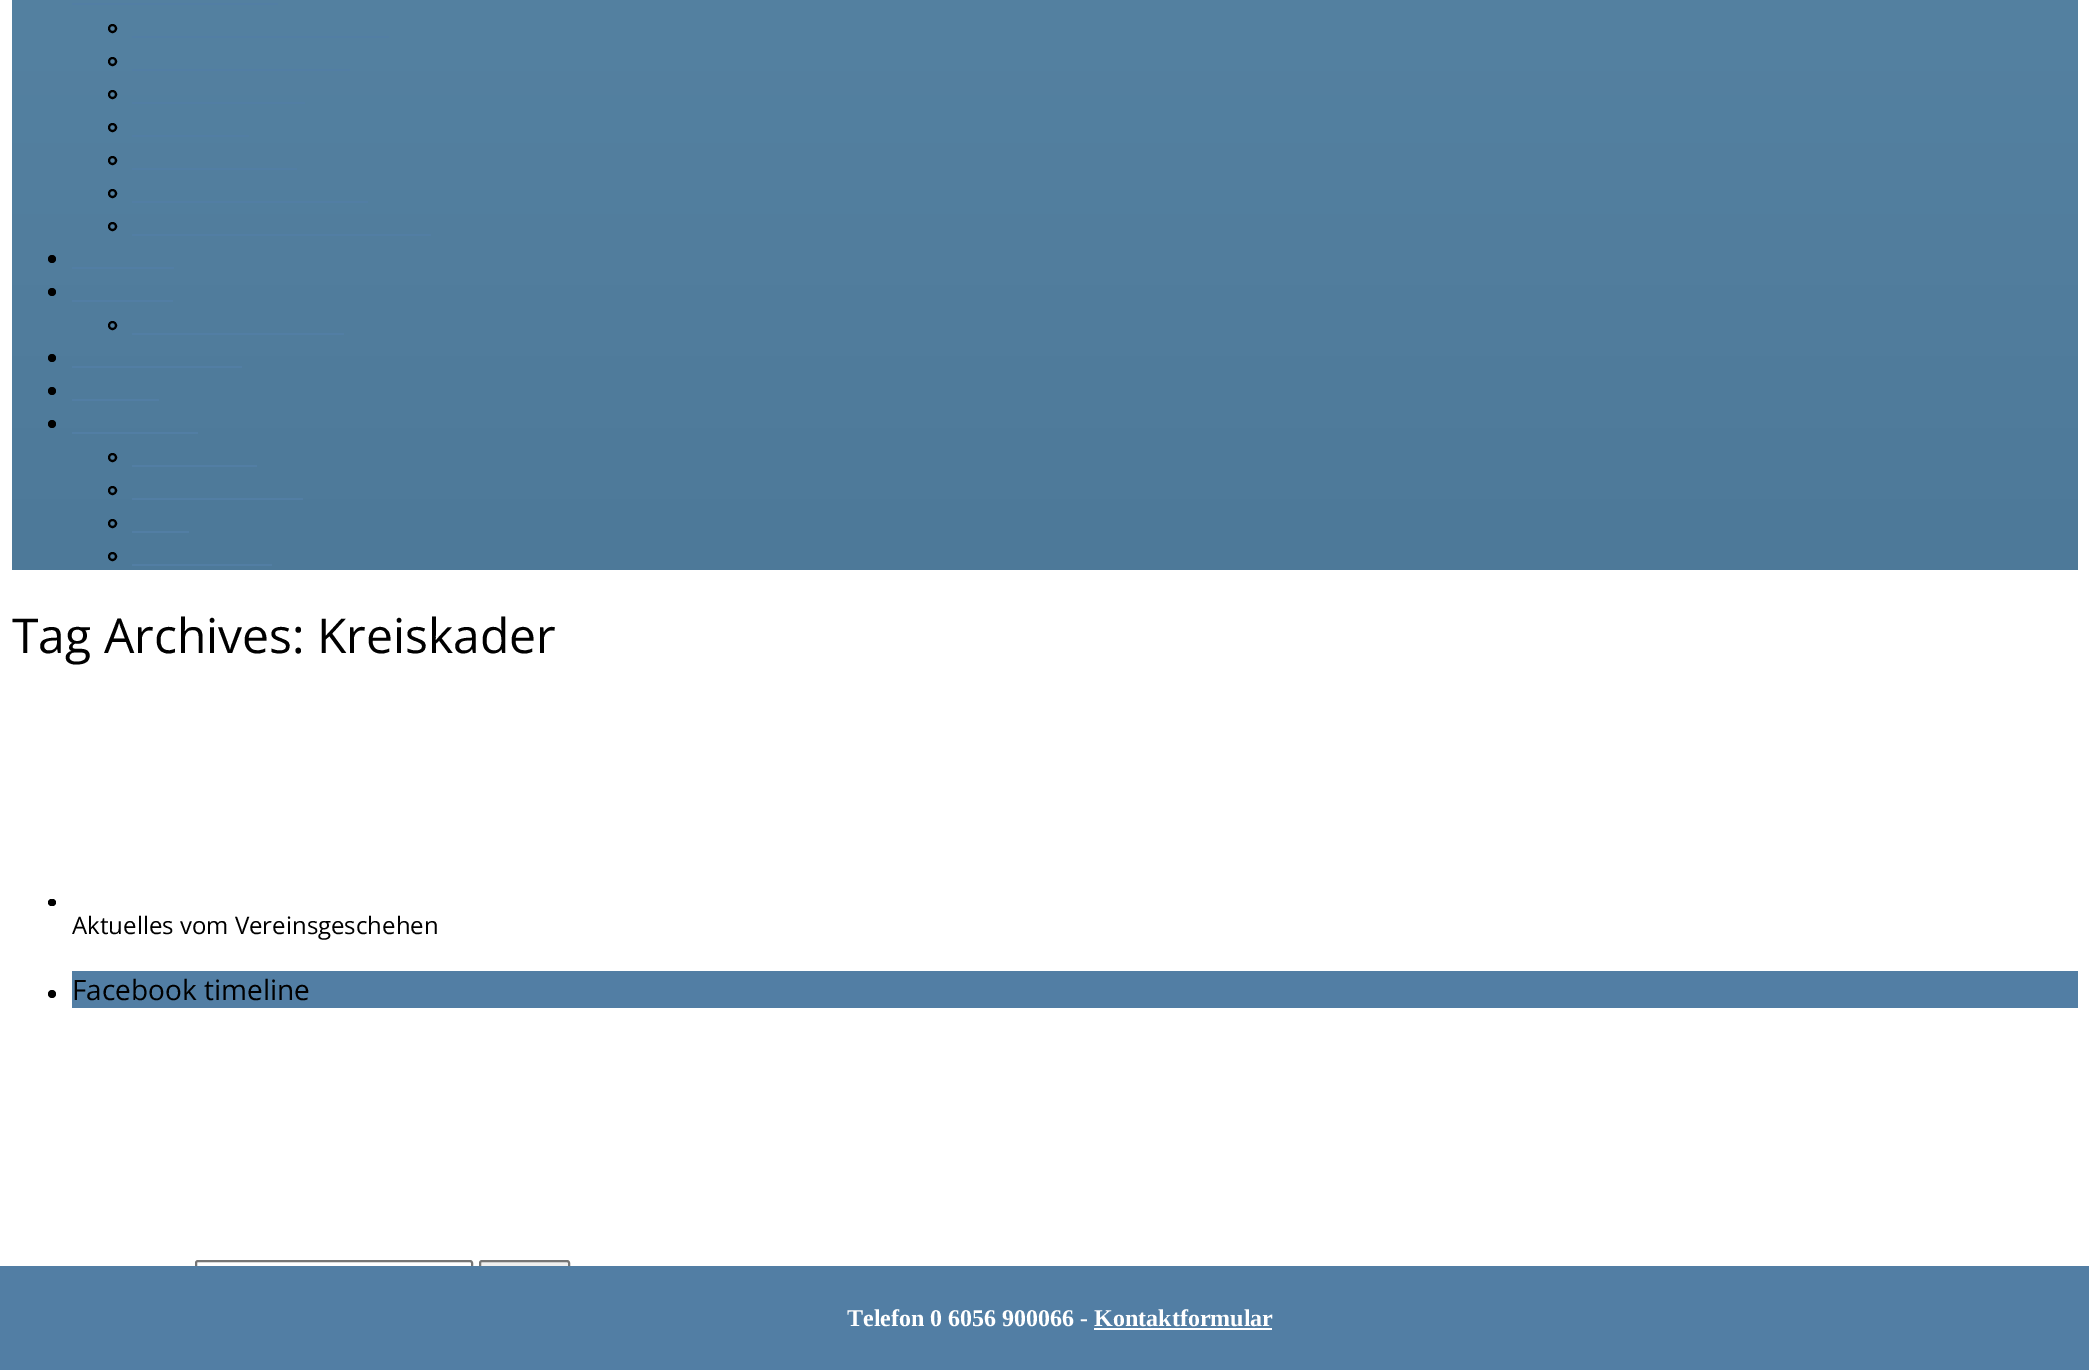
%!PS-Adobe-3.0
%%BoundingBox: 0 0 2089 1370
%%LanguageLevel: 3
%%Pages: 1
%%EndComments
%%BeginProlog
/setink { dup -16 bitshift 255 div exch dup -8 bitshift 255 and 255 div exch 255 and 255 div setrgbcolor } def
/usefont { [ exch dup neg 0 0 3 -1 roll 0 0 ] selectfont } def
/disc { newpath 0 360 arc closepath } def
/rrect { 5 dict begin { /r /h /w /y /x } { exch def } forall
  x r add y moveto x w add y 2 copy h add r arct x w add y h add x 1 index r arct
  x y h add x y r arct x y 2 copy exch w add exch r arct closepath end } def
%%EndProlog
%%BeginSetup
<< /PageSize [2089 1370] >> setpagedevice
%%EndSetup
%%Page: 1 1
0 1370 translate 1 -1 scale
4 setmiterlimit
16#FFFFFF setink
0 0 2089 1370 rectfill
gsave 12 0 moveto 2078 0 lineto 2078 570 lineto 12 570 lineto closepath clip newpath
<< /ShadingType 2 /ColorSpace /DeviceRGB /Coords [1045 -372 1045 570] /Extend [true true] /Function << /FunctionType 2 /Domain [0 1] /C0 [0.349 0.525 0.651] /C1 [0.302 0.475 0.6] /N 1 >> >> shfill grestore
16#527EA4 setink
72 3 206 2 rectfill
16#000000 setink
2 setlinewidth
112.5 28.5 3.5 disc stroke
16#527EA4 setink
132 36 257 2 rectfill
16#000000 setink
112.5 61.5 3.5 disc stroke
16#527EA4 setink
132 69 218 2 rectfill
16#000000 setink
112.5 94.5 3.5 disc stroke
16#527EA4 setink
132 102 173 2 rectfill
16#000000 setink
112.5 127.5 3.5 disc stroke
16#527EA4 setink
132 135 117 2 rectfill
16#000000 setink
112.5 160.5 3.5 disc stroke
16#527EA4 setink
132 168 165 2 rectfill
16#000000 setink
112.5 193.5 3.5 disc stroke
16#527EA4 setink
132 201 236 2 rectfill
16#000000 setink
112.5 226.5 3.5 disc stroke
16#527EA4 setink
132 234 299 2 rectfill
16#000000 setink
52 259 4 disc fill
16#527EA4 setink
72 267 102 2 rectfill
16#000000 setink
52 292 4 disc fill
16#527EA4 setink
72 300 101 2 rectfill
16#000000 setink
112.5 325.5 3.5 disc stroke
16#527EA4 setink
132 333 212 2 rectfill
16#000000 setink
52 358 4 disc fill
16#527EA4 setink
72 366 170 2 rectfill
16#000000 setink
52 391 4 disc fill
16#527EA4 setink
72 399 87 2 rectfill
16#000000 setink
52 424 4 disc fill
16#527EA4 setink
72 432 126 2 rectfill
16#000000 setink
112.5 457.5 3.5 disc stroke
16#527EA4 setink
132 465 125 2 rectfill
16#000000 setink
112.5 490.5 3.5 disc stroke
16#527EA4 setink
132 498 171 2 rectfill
16#000000 setink
112.5 523.5 3.5 disc stroke
16#527EA4 setink
132 531 57 2 rectfill
16#000000 setink
112.5 556.5 3.5 disc stroke
16#527EA4 setink
132 564 140 2 rectfill
/OpenSans-Regular 48 usefont
16#000000 setink
12 653 moveto (Tag Archives: Kreiskader) show
48 899 8 7 3.5 rrect fill
/OpenSans-Regular 24 usefont
72 934 moveto (Aktuelles vom Vereinsgeschehen) show
52 994 4 disc fill
16#527EA4 setink
72 971 2006 37 rectfill
/OpenSans-Regular 28 usefont
16#000000 setink
72 1000 moveto (Facebook timeline) show
16#767676 setink
196 1261 276 30 2 rrect stroke
16#EFEFEF setink
480 1261 89 30 2 rrect gsave fill grestore
16#767676 setink
stroke
16#527EA4 setink
0 1266 2089 104 rectfill
/LiberationSerif-Bold 24 usefont
16#FFFFFF setink
847 1326 moveto (Telefon 0 6056 900066 - Kontaktformular) show
1094 1328 178 2 rectfill
showpage
%%EOF
